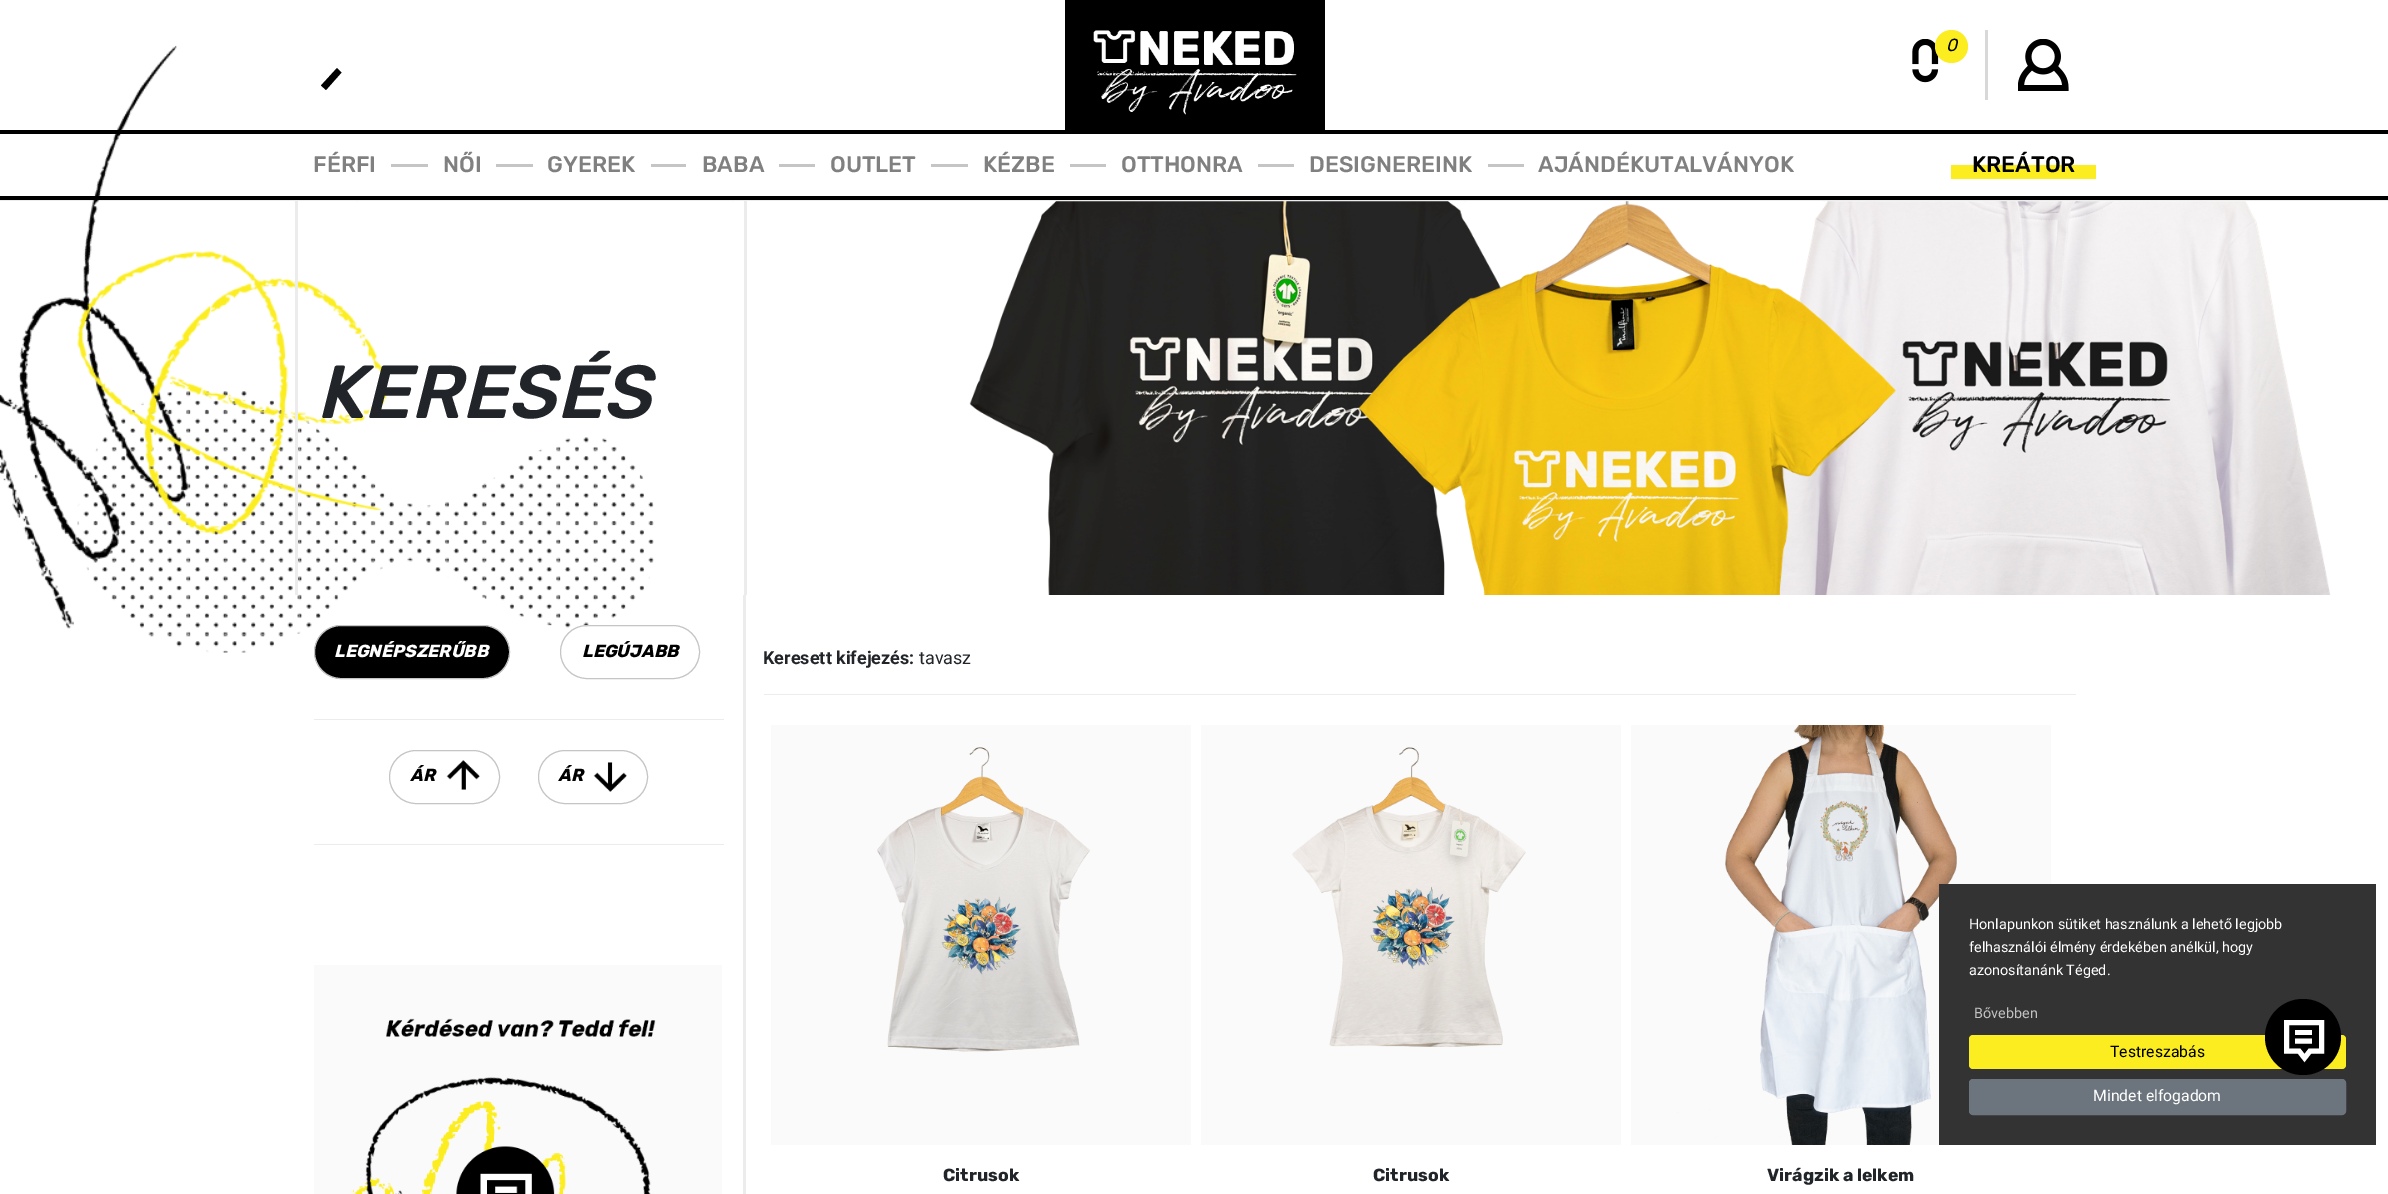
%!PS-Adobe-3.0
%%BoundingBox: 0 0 2388 1194
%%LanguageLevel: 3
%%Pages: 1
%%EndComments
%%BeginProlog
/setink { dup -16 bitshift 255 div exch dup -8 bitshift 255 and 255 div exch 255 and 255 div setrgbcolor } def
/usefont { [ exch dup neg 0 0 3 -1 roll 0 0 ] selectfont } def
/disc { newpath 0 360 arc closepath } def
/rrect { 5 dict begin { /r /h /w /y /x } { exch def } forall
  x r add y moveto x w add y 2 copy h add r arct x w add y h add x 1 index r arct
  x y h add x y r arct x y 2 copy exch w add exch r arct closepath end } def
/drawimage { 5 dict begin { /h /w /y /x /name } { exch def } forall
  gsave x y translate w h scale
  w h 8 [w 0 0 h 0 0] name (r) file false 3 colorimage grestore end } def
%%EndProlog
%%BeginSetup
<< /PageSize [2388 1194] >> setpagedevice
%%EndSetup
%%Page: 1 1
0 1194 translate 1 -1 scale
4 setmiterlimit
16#FFFFFF setink
0 0 2388 1194 rectfill
(img1.raw) 1065 0 260 130 drawimage
(img2.raw) 1912 39 27 44 drawimage
16#FBED20 setink
1951.5 46.5 16.5 disc fill
/Rubik-Italic 17.5 usefont
16#000000 setink
1946 51 moveto (0) show
16#D8D8D8 setink
1985 30 3 70 rectfill
(img3.raw) 2018 39 51 52 drawimage
(img4.raw) 355 201 1848 1 drawimage
16#ECECEC setink
0 200 2388 1 rectfill
(img5.raw) 0 45 654 608 drawimage
16#000000 setink
337 68 moveto 321 85.5 lineto 326 90 lineto 341.5 72.5 lineto closepath fill
0 130 2388 4 rectfill
0 196 2388 4 rectfill
/Rubik-Medium 22.5 usefont
16#808080 setink
313 172 moveto (FÉRFI) show
16#C5C5C5 setink
391 164 37 3 rectfill
16#808080 setink
443 172 moveto (NŐI) show
16#C5C5C5 setink
496 164 37 3 rectfill
16#808080 setink
547 172 moveto (GYEREK) show
16#C5C5C5 setink
651 164 35 3 rectfill
16#808080 setink
702 172 moveto (BABA) show
16#C5C5C5 setink
779 164 36 3 rectfill
16#808080 setink
830 172 moveto (OUTLET) show
16#C5C5C5 setink
931 164 37 3 rectfill
16#808080 setink
983 172 moveto (KÉZBE) show
16#C5C5C5 setink
1070 164 36 3 rectfill
16#808080 setink
1121 172 moveto (OTTHONRA) show
16#C5C5C5 setink
1258 164 36 3 rectfill
16#808080 setink
1309 172 moveto (DESIGNEREINK) show
16#C5C5C5 setink
1488 164 36 3 rectfill
16#808080 setink
1538 172 moveto (AJÁNDÉKUTALVÁNYOK) show
16#FBED20 setink
1951 165 145 14 rectfill
16#000000 setink
1972 172 moveto (KREÁTOR) show
16#ECECEC setink
295 201 3 394 rectfill
744 201 3 394 rectfill
/Rubik-MediumItalic 75 usefont
16#212529 setink
316 418 moveto (KERESÉS) show
(img6.raw) 969 201 1362 394 drawimage
16#ECECEC setink
743 595 3 599 rectfill
16#000000 setink
314.5 625.5 195 53 26.5 rrect gsave fill grestore
16#C5C5C5 setink
stroke
/Rubik-BoldItalic 17.5 usefont
16#FFFFFF setink
334 657 moveto (LEGNÉPSZERŰBB) show
16#C5C5C5 setink
560.5 625.5 139 53 26.5 rrect stroke
16#000000 setink
582 657 moveto (LEGÚJABB) show
16#ECECEC setink
314 719 410 1 rectfill
16#C5C5C5 setink
389.5 750.5 110 53 26.5 rrect stroke
16#000000 setink
410 781 moveto (ÁR) show
(img7.raw) 446 760 34 30 drawimage
16#C5C5C5 setink
538.5 750.5 109 53 26.5 rrect stroke
16#000000 setink
558 781 moveto (ÁR) show
(img8.raw) 593 762 34 30 drawimage
16#ECECEC setink
314 844 410 1 rectfill
(img9.raw) 314 965 408 229 drawimage
764 694 1312 1 rectfill
/Roboto-Bold 18 usefont
16#212529 setink
763 664 moveto (Keresett kifejezés:) show
/Roboto-Regular 18 usefont
919 664 moveto (tavasz) show
16#FBFAFA setink
771 725 420 420 rectfill
(img10.raw) 877 747 213 305 drawimage
/Rubik-Bold 17.5 usefont
16#212529 setink
943 1181 moveto (Citrusok) show
16#FBFAFA setink
1201 725 420 420 rectfill
(img11.raw) 1292 747 234 300 drawimage
16#212529 setink
1373 1181 moveto (Citrusok) show
16#FBFAFA setink
1631 725 420 420 rectfill
(img12.raw) 1677 725 280 420 drawimage
16#212529 setink
1767 1181 moveto (Virágzik a lelkem) show
16#333333 setink
1939 884 437 261 rectfill
16#FBED20 setink
1969 1035 377 34 4 rrect fill
16#000000 setink
2303 1075 moveto 2324 1075 2341 1058 2341 1037 curveto 2341 1016 2324 999 2303 999 curveto 2282 999 2265 1016 2265 1037 curveto 2265 1058 2282 1075 2303 1075 curveto closepath fill
16#FFFFFF setink
5 setlinewidth
2286.5 1022.5 moveto 2321.5 1022.5 lineto 2321.5 1051 lineto 2310 1051 lineto 2304.5 1058 lineto 2299 1051 lineto 2286.5 1051 lineto closepath 2295 1041 moveto 2312 1041 lineto stroke
2295 1030 17 5 rectfill
/Roboto-Regular 14.4 usefont
[
    [(Honlapunkon sütiket használunk a lehető legjobb) 1969 929]
    [(felhasználói élmény érdekében anélkül, hogy) 1969 952]
    [(azonosítanánk Téged.) 1969 975]
] { aload pop moveto show } forall
16#C2C2C2 setink
1974 1018 moveto (Bővebben) show
/Roboto-Regular 15.75 usefont
16#000000 setink
2110 1057 moveto (Testreszabás) show
16#6C757D setink
1969.5 1079.5 376 35 3.5 rrect gsave fill grestore
1 setlinewidth
stroke
16#FFFFFF setink
2093 1101 moveto (Mindet elfogadom) show
showpage
%%EOF
